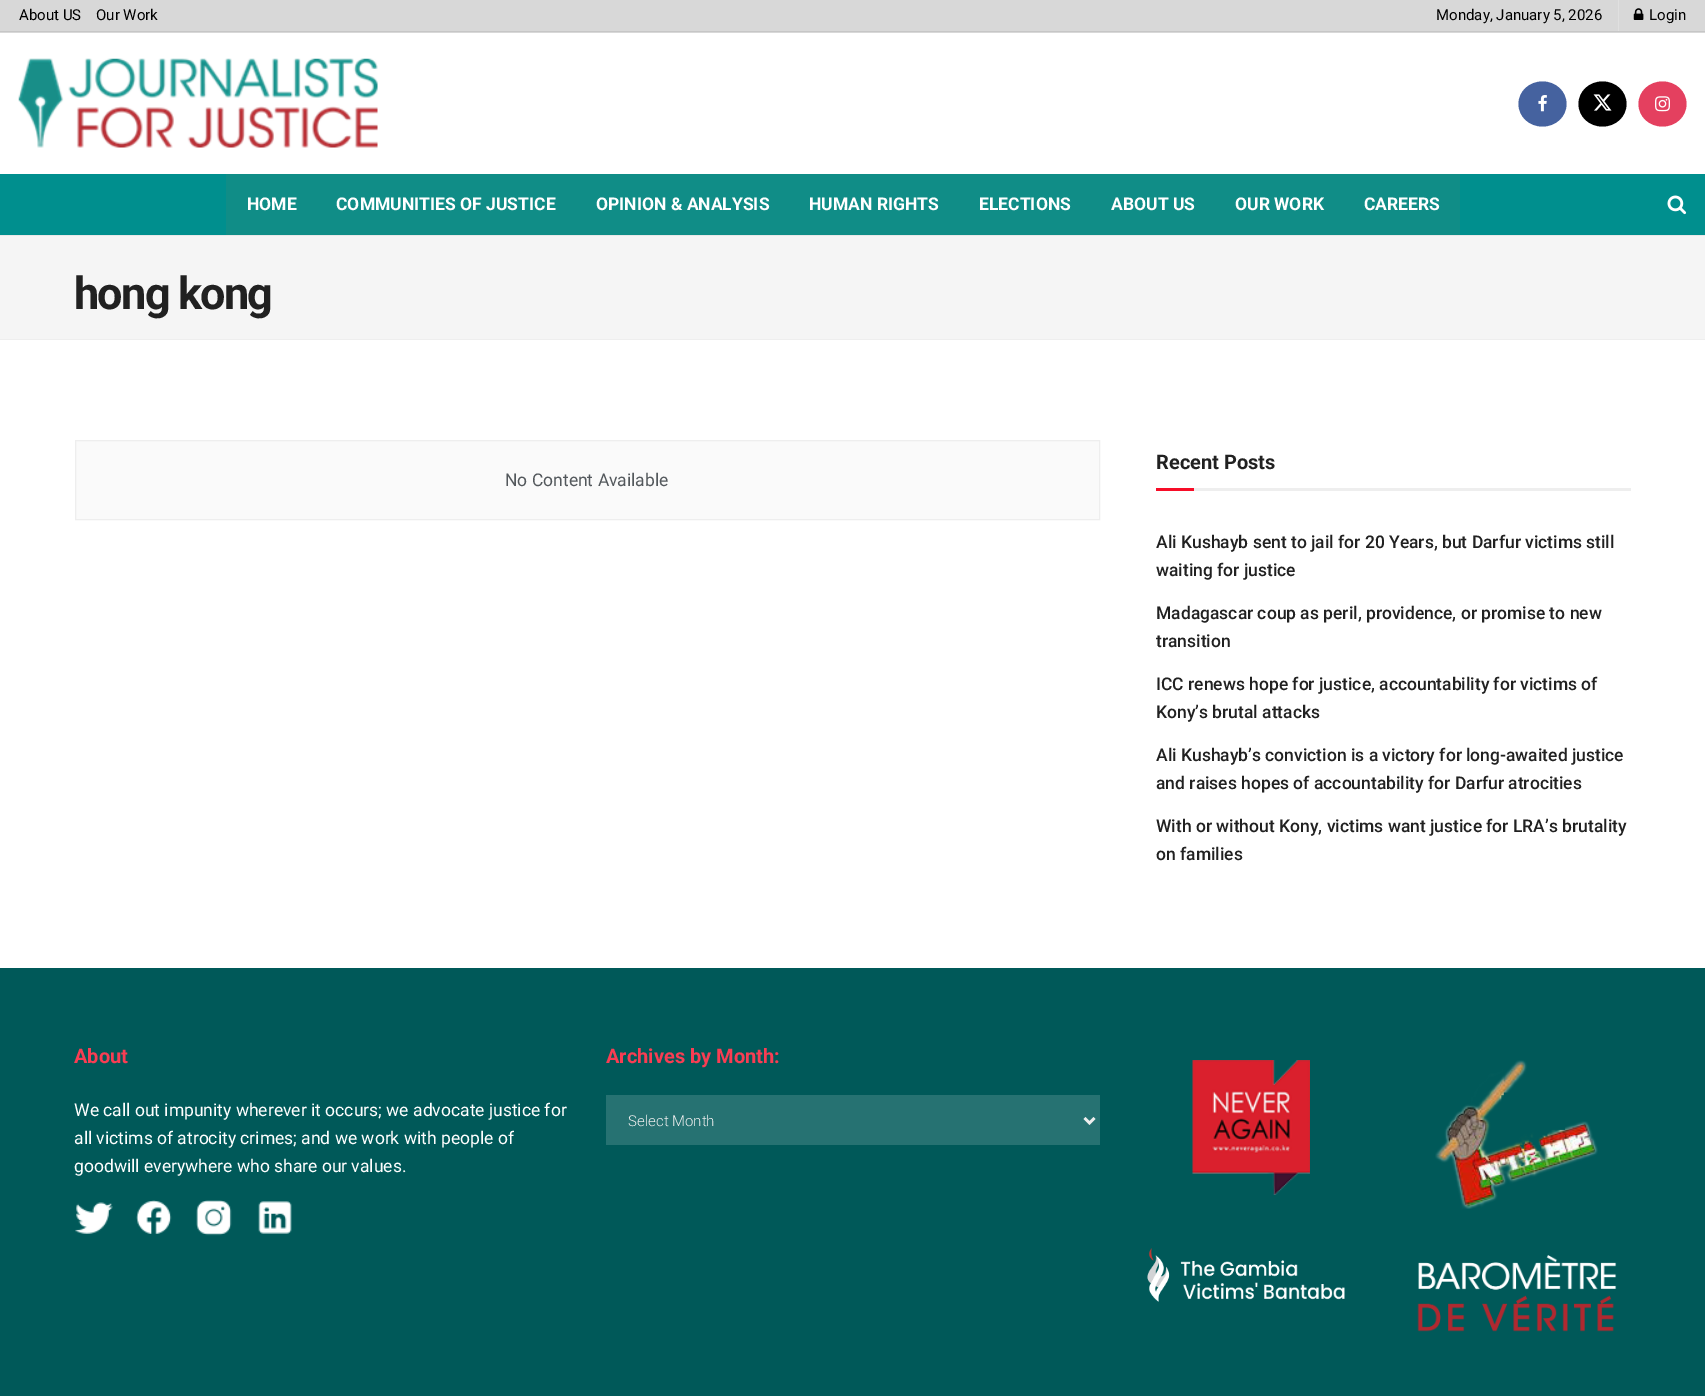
%!PS-Adobe-3.0
%%BoundingBox: 0 0 1705 1396
%%LanguageLevel: 3
%%Pages: 1
%%EndComments
%%BeginProlog
/setink { dup -16 bitshift 255 div exch dup -8 bitshift 255 and 255 div exch 255 and 255 div setrgbcolor } def
/usefont { [ exch dup neg 0 0 3 -1 roll 0 0 ] selectfont } def
/drawimage { 5 dict begin { /h /w /y /x /name } { exch def } forall
  gsave x y translate w h scale
  w h 8 [w 0 0 h 0 0] name (r) file false 3 colorimage grestore end } def
%%EndProlog
%%BeginSetup
<< /PageSize [1705 1396] >> setpagedevice
%%EndSetup
%%Page: 1 1
0 1396 translate 1 -1 scale
4 setmiterlimit
16#FFFFFF setink
0 0 1705 1396 rectfill
16#D8D8D8 setink
0 0 1705 33 rectfill
16#C6C6C6 setink
0 31 1705 1 rectfill
/Roboto-Regular 15 usefont
16#000000 setink
19 20 moveto (About US) show
96 20 moveto (Our Work) show
16#E0E0E0 setink
1618 0 1 31 rectfill
16#000000 setink
1436 20 moveto (Monday, January 5, 2026) show
(img1.raw) 1633 8 11 12 drawimage
1649 20 moveto (Login) show
(img2.raw) 18 58 360 90 drawimage
16#45629F setink
1542.5 81.5 moveto 1556 81.5 1566.5 91.5 1566.5 104 curveto 1566.5 116.5 1556 126.5 1542.5 126.5 curveto 1529 126.5 1518.5 116.5 1518.5 104 curveto 1518.5 91.5 1529 81.5 1542.5 81.5 curveto closepath fill
(img3.raw) 1538 95 9 17 drawimage
16#000000 setink
1602.5 81.5 moveto 1616 81.5 1626.5 91.5 1626.5 104 curveto 1626.5 116.5 1616 126.5 1602.5 126.5 curveto 1589 126.5 1578.5 116.5 1578.5 104 curveto 1578.5 91.5 1589 81.5 1602.5 81.5 curveto closepath fill
(img4.raw) 1593 94 19 17 drawimage
16#E4405F setink
1662.5 81.5 moveto 1676 81.5 1686.5 91.5 1686.5 104 curveto 1686.5 116.5 1676 126.5 1662.5 126.5 curveto 1649 126.5 1638.5 116.5 1638.5 104 curveto 1638.5 91.5 1649 81.5 1662.5 81.5 curveto closepath fill
(img5.raw) 1655 96 15 16 drawimage
[
    [0 174 1705 61 16#008F8E]
    [0 235 1705 1 16#E8E8E8]
    [226 174 1234 61 16#108D87]
] { aload pop setink rectfill } forall
/Roboto-Bold 17.5 usefont
16#FFFFFF setink
[
    [(HOME) 247 210]
    [(COMMUNITIES OF JUSTICE) 336 210]
    [(OPINION & ANALYSIS) 596 210]
    [(HUMAN RIGHTS) 809 210]
    [(ELECTIONS) 979 210]
    [(ABOUT US) 1111 210]
    [(OUR WORK) 1235 210]
    [(CAREERS) 1364 210]
] { aload pop moveto show } forall
(img6.raw) 1667 195 20 20 drawimage
16#F5F5F5 setink
0 236 1705 103 rectfill
16#EEEEEE setink
0 339 1705 1 rectfill
/Roboto-Bold 45 usefont
16#212121 setink
74 309 moveto -1.75 0 (hong kong) ashow
16#FAFAFA setink
75.5 440.5 moveto 1099.5 440.5 lineto 1099.5 519.5 lineto 75.5 519.5 lineto closepath gsave fill grestore
16#EEEEEE setink
stroke
/Roboto-Regular 17.5 usefont
16#53585C setink
505 486 moveto (No Content Available) show
16#EEEEEE setink
1194 488 437 3 rectfill
/Roboto-Bold 20 usefont
16#212121 setink
1156 469 moveto (Recent Posts) show
16#F70D28 setink
1156 488 38 3 rectfill
/Roboto-Medium 17.5 usefont
16#212121 setink
[
    [(Ali Kushayb sent to jail for 20 Years, but Darfur victims still) 1156 548]
    [(waiting for justice) 1156 576]
    [(Madagascar coup as peril, providence, or promise to new) 1156 619]
    [(transition) 1156 647]
    [(ICC renews hope for justice, accountability for victims of) 1156 690]
    [(Kony’s brutal attacks) 1156 718]
    [(Ali Kushayb’s conviction is a victory for long-awaited justice) 1156 761]
    [(and raises hopes of accountability for Darfur atrocities) 1156 789]
    [(With or without Kony, victims want justice for LRA’s brutality) 1156 832]
    [(on families) 1156 860]
] { aload pop moveto show } forall
16#005959 setink
0 968 1705 428 rectfill
/Roboto-Bold 20 usefont
16#F93D53 setink
74 1063 moveto (About) show
/Roboto-Regular 17.5 usefont
16#FFFFFF setink
[
    [(We call out impunity wherever it occurs; we advocate justice for) 74 1116]
    [(all victims of atrocity crimes; and we work with people of) 74 1144]
    [(goodwill everywhere who share our values.) 74 1172]
] { aload pop moveto show } forall
(img7.raw) 75 1202 38 32 drawimage
(img8.raw) 136 1200 36 34 drawimage
(img9.raw) 196 1200 36 36 drawimage
(img10.raw) 258 1201 34 33 drawimage
/Roboto-Bold 20 usefont
16#F93D53 setink
606 1063 moveto (Archives by Month:) show
16#267272 setink
606 1095 494 50 rectfill
16#EEEEEE setink
2.5 setlinewidth
1084.5 1118 moveto 1089.5 1123 lineto 1094.5 1118 lineto stroke
/Roboto-Light 15 usefont
628 1126 moveto (Select Month) show
(img11.raw) 1192 1060 118 135 drawimage
(img12.raw) 1435 1060 163 149 drawimage
(img13.raw) 1147 1248 198 54 drawimage
(img14.raw) 1417 1255 200 77 drawimage
showpage
%%EOF
